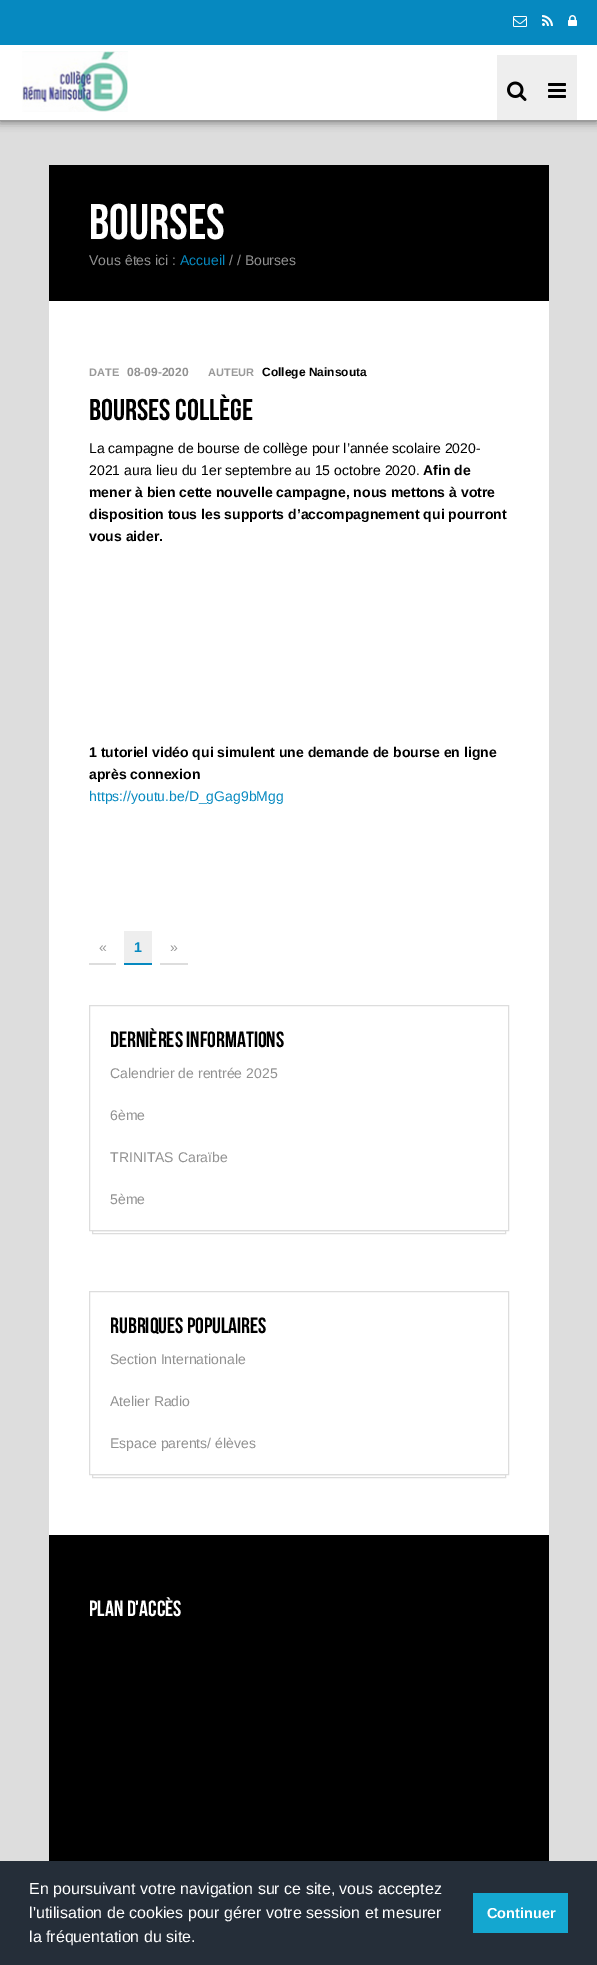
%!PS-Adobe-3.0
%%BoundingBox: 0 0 597 1965
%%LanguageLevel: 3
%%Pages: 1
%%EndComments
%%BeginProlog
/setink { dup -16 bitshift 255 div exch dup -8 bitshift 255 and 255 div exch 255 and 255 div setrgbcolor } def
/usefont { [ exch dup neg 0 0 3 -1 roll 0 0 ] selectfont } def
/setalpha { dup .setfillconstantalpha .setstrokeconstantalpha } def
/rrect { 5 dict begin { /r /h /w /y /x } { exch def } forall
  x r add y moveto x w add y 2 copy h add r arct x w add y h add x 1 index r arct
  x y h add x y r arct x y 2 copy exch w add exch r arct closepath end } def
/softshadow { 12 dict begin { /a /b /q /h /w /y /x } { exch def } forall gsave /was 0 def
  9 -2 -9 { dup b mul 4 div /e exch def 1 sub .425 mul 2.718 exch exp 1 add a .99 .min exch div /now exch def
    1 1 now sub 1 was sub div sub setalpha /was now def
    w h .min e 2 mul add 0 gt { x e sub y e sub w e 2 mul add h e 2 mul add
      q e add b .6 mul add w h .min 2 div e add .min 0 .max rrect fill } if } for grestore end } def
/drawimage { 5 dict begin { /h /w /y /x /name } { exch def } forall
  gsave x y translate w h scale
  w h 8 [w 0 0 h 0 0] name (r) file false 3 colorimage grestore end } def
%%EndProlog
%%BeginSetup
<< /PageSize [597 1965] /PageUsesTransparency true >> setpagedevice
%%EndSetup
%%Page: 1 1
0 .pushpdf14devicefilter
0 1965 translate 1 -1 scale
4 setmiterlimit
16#DDDDDD setink
0 0 597 1965 rectfill
16#000000 setink
0 41 597 80 0 5 0.6 softshadow
16#FFFFFF setink
0 45 597 75 rectfill
16#0689C0 setink
0 0 597 45 rectfill
(img1.raw) 22 51 106 61 drawimage
16#EEEEEE setink
497 55 80 65 rectfill
(img2.raw) 507 81 20 20 drawimage
(img3.raw) 548 83 18 15 drawimage
(img4.raw) 513 16 14 11 drawimage
(img5.raw) 542 15 11 11 drawimage
(img6.raw) 568 15 9 11 drawimage
16#000000 setink
49 165 500 136 rectfill
/BebasNeue-Regular 50 usefont
16#FFFFFF setink
89 239 moveto (Bourses) show
/LiberationSans-Regular 14 usefont
16#919191 setink
89 265 moveto (Vous êtes ici :) show
16#0689C0 setink
180 265 moveto (Accueil) show
16#919191 setink
229 265 moveto (/ / Bourses) show
16#FFFFFF setink
49 301 500 1234 rectfill
/LiberationSans-Bold 11 usefont
16#999999 setink
89 376 moveto (DATE) show
/LiberationSans-Bold 12 usefont
16#919191 setink
127 376 moveto (08-09-2020) show
/LiberationSans-Bold 11 usefont
16#999999 setink
208 376 moveto (AUTEUR) show
/LiberationSans-Bold 12 usefont
16#000000 setink
262 376 moveto (College Nainsouta) show
/BebasNeue-Regular 30 usefont
89 420 moveto (Bourses collège) show
/LiberationSans-Regular 14 usefont
89 453 moveto (La campagne de bourse de collège pour l’année scolaire 2020-) show
89 475 moveto (2021 aura lieu du 1er septembre au 15 octobre 2020.) show
/LiberationSans-Bold 14 usefont
[
    [(Afin de) 423 475]
    [(mener à bien cette nouvelle campagne, nous mettons à votre) 89 497]
    [(disposition tous les supports d’accompagnement qui pourront) 89 519]
    [(vous aider.) 89 541]
    [(1 tutoriel vidéo qui simulent une demande de bourse en ligne) 89 757]
    [(après connexion) 89 779]
] { aload pop moveto show } forall
/LiberationSans-Regular 14 usefont
16#0689C0 setink
89 801 moveto (https://youtu.be/D_gGag9bMgg) show
16#DDDDDD setink
89 963 27 2 rectfill
16#999999 setink
99 952 moveto («) show
16#EEEEEE setink
124 931 28 32 rectfill
16#0689C0 setink
124 963 28 2 rectfill
/LiberationSans-Bold 14 usefont
134 952 moveto (1) show
16#DDDDDD setink
160 963 28 2 rectfill
/LiberationSans-Regular 14 usefont
16#999999 setink
170 952 moveto (») show
16#DDDDDD setink
89.5 1005.5 419 225 rectstroke
/BebasNeue-Regular 22 usefont
16#000000 setink
110 1047 moveto (Dernières informations) show
/LiberationSans-Regular 14 usefont
16#919191 setink
[
    [(Calendrier de rentrée 2025) 110 1078]
    [(6ème) 110 1120]
    [(TRINITAS Caraïbe) 110 1162]
    [(5ème) 110 1204]
] { aload pop moveto show } forall
16#DDDDDD setink
92.5 1230.5 413 3 rectstroke
89.5 1291.5 419 183 rectstroke
/BebasNeue-Regular 22 usefont
16#000000 setink
110 1333 moveto (Rubriques populaires) show
/LiberationSans-Regular 14 usefont
16#919191 setink
[
    [(Section Internationale) 110 1364]
    [(Atelier Radio) 110 1406]
    [(Espace parents/ élèves) 110 1448]
] { aload pop moveto show } forall
16#DDDDDD setink
92.5 1474.5 413 3 rectstroke
16#000000 setink
49 1535 500 326 rectfill
/BebasNeue-Regular 22 usefont
16#FFFFFF setink
89 1616 moveto (Plan d'accès) show
16#252E39 setink
0 1861 597 104 rectfill
/LiberationSans-Regular 16 usefont
16#FFFFFF setink
[
    [(En poursuivant votre navigation sur ce site, vous acceptez) 29 1894]
    [(l'utilisation de cookies pour gérer votre session et mesurer) 29 1918]
    [(la fréquentation du site.) 29 1942]
] { aload pop moveto show } forall
16#14A7D0 setink
473 1893 95 40 rectfill
/LiberationSans-Bold 14.5 usefont
16#FFFFFF setink
487 1918 moveto (Continuer) show
.poppdf14devicefilter showpage
%%EOF
